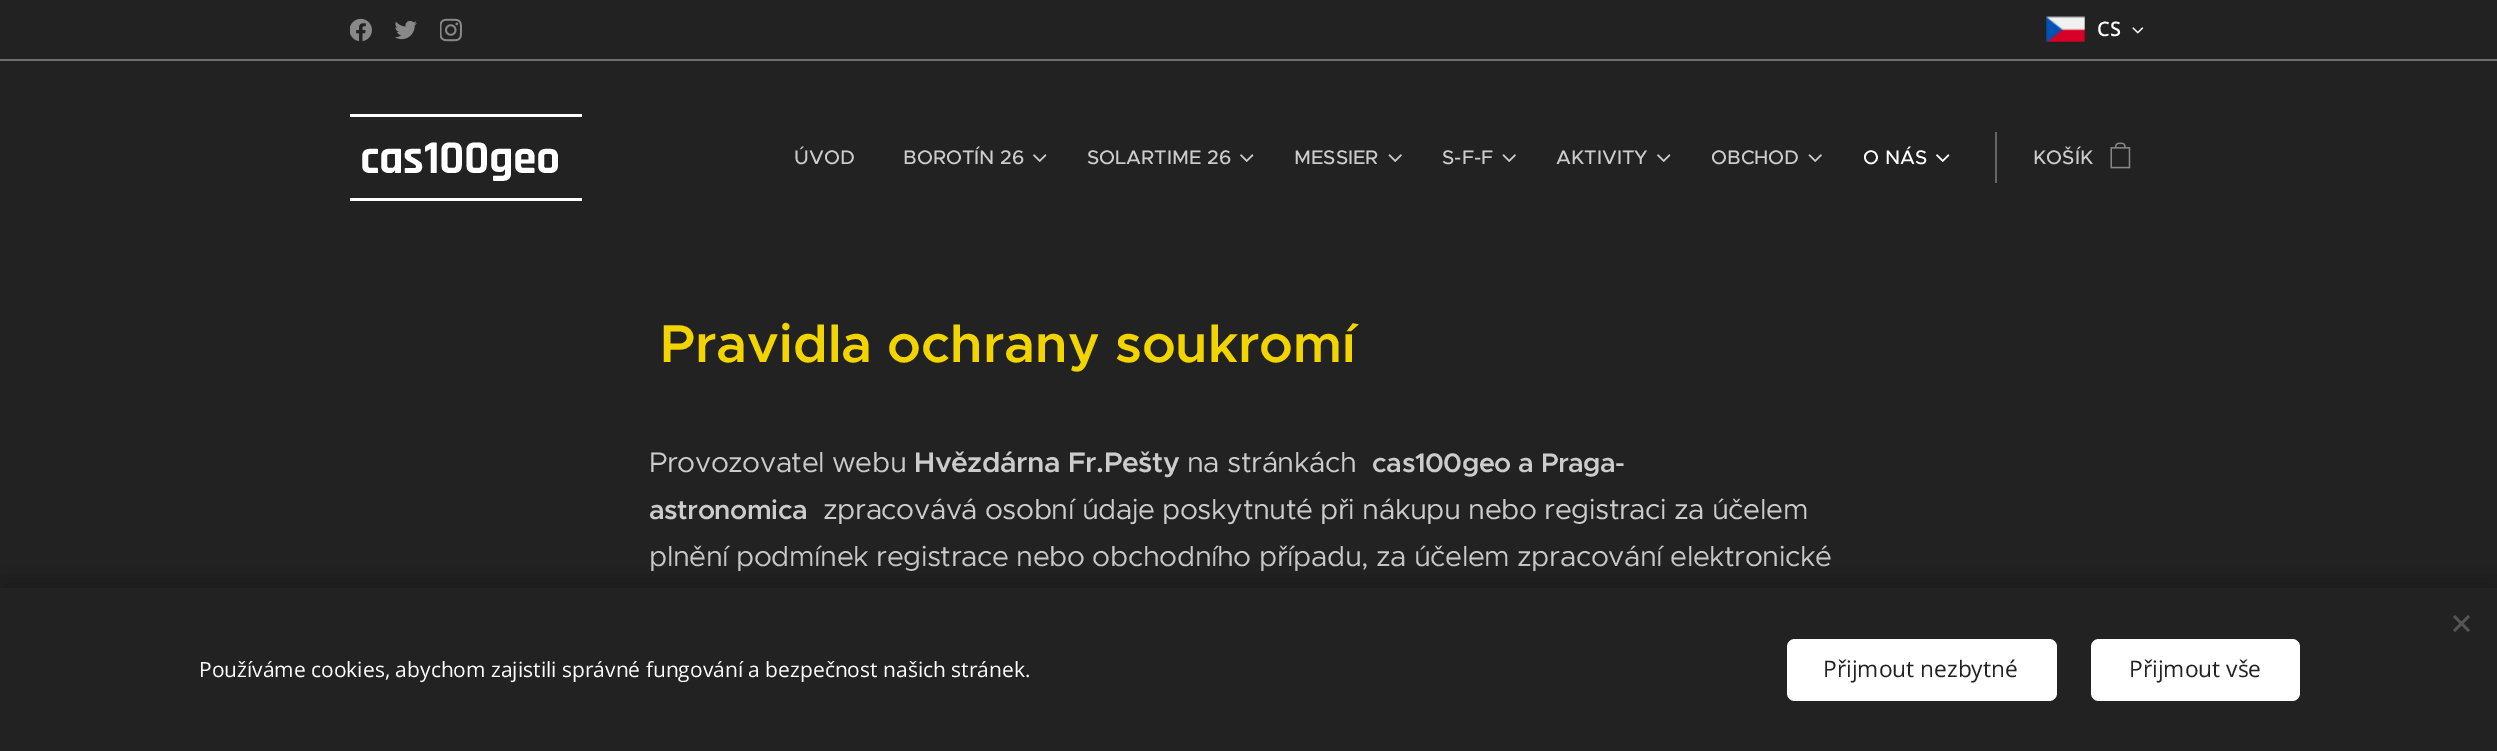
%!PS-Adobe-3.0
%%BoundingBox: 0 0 2497 751
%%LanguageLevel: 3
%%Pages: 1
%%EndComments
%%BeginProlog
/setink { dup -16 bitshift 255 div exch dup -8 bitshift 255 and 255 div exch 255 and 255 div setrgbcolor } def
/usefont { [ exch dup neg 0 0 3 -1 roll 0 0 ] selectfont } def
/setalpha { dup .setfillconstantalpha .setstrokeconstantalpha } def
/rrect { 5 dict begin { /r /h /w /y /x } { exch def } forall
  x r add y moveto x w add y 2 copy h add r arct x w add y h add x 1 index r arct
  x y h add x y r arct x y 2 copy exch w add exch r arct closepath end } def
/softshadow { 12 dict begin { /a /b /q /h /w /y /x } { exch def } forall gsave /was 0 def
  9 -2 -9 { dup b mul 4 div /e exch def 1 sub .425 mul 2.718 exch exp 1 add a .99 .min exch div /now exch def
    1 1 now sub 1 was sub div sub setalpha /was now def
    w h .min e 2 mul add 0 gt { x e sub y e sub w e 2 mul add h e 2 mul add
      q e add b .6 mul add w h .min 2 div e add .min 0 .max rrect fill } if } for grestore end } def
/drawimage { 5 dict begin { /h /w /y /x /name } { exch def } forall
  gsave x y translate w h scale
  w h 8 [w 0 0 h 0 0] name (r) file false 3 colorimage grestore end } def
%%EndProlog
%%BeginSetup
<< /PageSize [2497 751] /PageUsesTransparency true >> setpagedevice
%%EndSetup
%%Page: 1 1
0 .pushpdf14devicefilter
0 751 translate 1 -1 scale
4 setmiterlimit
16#222222 setink
0 0 2497 751 rectfill
(img1.raw) 350 18 22 24 drawimage
(img2.raw) 395 20 22 20 drawimage
(img3.raw) 440 18 22 24 drawimage
(img4.raw) 2046 16 39 26 drawimage
/OpenSans-SemiBold 20 usefont
16#FFFFFF setink
2097 36 moveto (CS) show
(img5.raw) 2132 27 12 7 drawimage
[
    [0 59 2497 2 16#6E6E6E]
    [350 114 232 3 16#FFFFFF]
    [350 198 232 3 16#FFFFFF]
] { aload pop setink rectfill } forall
/Rajdhani-Bold 47.5 usefont
360 173 moveto -0.43 0 (cas100geo) ashow
/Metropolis-Medium 19.75 usefont
16#CCCCCC setink
794 164 moveto (ÚVOD) show
903 164 moveto (BOROTÍN 26) show
(img6.raw) 1033 154 14 8 drawimage
1087 164 moveto (SOLARTIME 26) show
(img6.raw) 1240 154 14 8 drawimage
1294 164 moveto (MESSIER) show
(img7.raw) 1388 154 14 8 drawimage
1442 164 moveto (S-F-F) show
(img7.raw) 1502 154 14 8 drawimage
1556 164 moveto (AKTIVITY) show
(img6.raw) 1657 154 14 8 drawimage
1711 164 moveto (OBCHOD) show
(img7.raw) 1808 154 14 8 drawimage
16#FFFFFF setink
1863 164 moveto (O NÁS) show
(img8.raw) 1936 154 14 8 drawimage
16#666666 setink
1995 132 2 51 rectfill
16#CCCCCC setink
2033 164 moveto (KOŠÍK) show
(img9.raw) 2110 142 21 27 drawimage
/Metropolis-SemiBold 53.5 usefont
16#F2D400 setink
660 362 moveto (Pravidla ochrany soukromí) show
/Metropolis-Regular 28.5 usefont
16#CCCCCC setink
649 472 moveto -0.43 0 (Provozovatel webu) ashow
/Metropolis-SemiBold 28.5 usefont
914 472 moveto -0.43 0 (Hvězdárna Fr.Pešty) ashow
/Metropolis-Regular 28.5 usefont
1187 472 moveto -0.43 0 (na stránkách) ashow
/Metropolis-SemiBold 27 usefont
1372 472 moveto -0.43 0 (cas100geo a Praga-) ashow
649 519 moveto -0.43 0 (astronomica) ashow
/Metropolis-Regular 28.5 usefont
823 519 moveto -0.43 0 (zpracovává osobní údaje poskytnuté při nákupu nebo registraci za účelem) ashow
649 566 moveto -0.43 0 (plnění podmínek registrace nebo obchodního případu, za účelem zpracování elektronické) ashow
16#000000 setink
0 588 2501 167 0 19 0.33 softshadow
16#222222 setink
0 588 2497 163 rectfill
16#555555 setink
2453 630 moveto 2468 615 lineto 2470 617 lineto 2455 632 lineto closepath fill
2455 615 moveto 2470 630 lineto 2468 632 lineto 2453 617 lineto closepath fill
/OpenSans-Regular 21 usefont
16#FFFFFF setink
199 677 moveto (Používáme cookies, abychom zajistili správné fungování a bezpečnost našich stránek.) show
1787 639 270 62 8 rrect fill
/OpenSans-Regular 22.75 usefont
16#222222 setink
1823 677 moveto (Přijmout nezbytné) show
16#FFFFFF setink
2091 639 209 62 8 rrect fill
16#222222 setink
2129 677 moveto (Přijmout vše) show
.poppdf14devicefilter showpage
%%EOF
